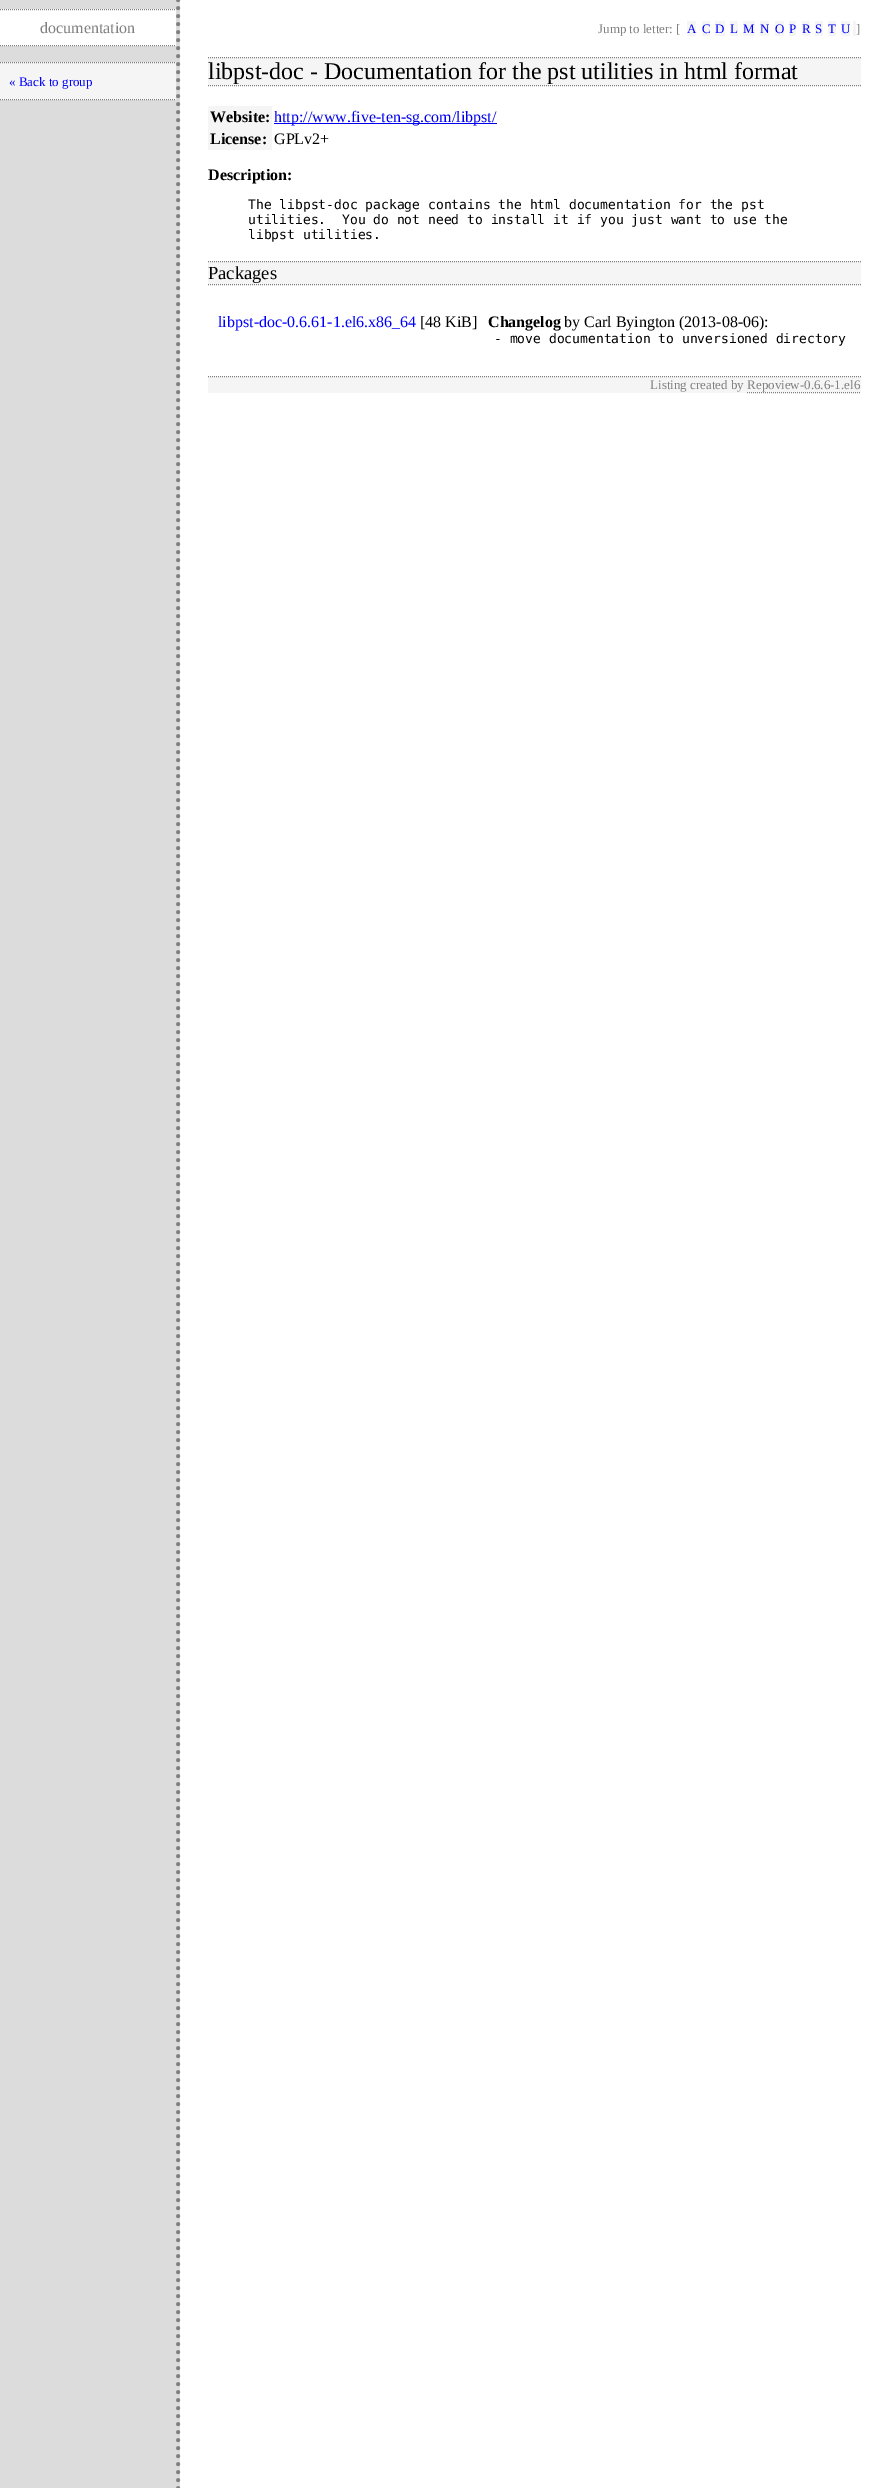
%!PS-Adobe-3.0
%%BoundingBox: 0 0 870 2488
%%LanguageLevel: 3
%%Pages: 1
%%EndComments
%%BeginProlog
/setink { dup -16 bitshift 255 div exch dup -8 bitshift 255 and 255 div exch 255 and 255 div setrgbcolor } def
/usefont { [ exch dup neg 0 0 3 -1 roll 0 0 ] selectfont } def
%%EndProlog
%%BeginSetup
<< /PageSize [870 2488] >> setpagedevice
%%EndSetup
%%Page: 1 1
0 2488 translate 1 -1 scale
4 setmiterlimit
16#FFFFFF setink
0 0 870 2488 rectfill
16#DCDCDC setink
0 0 180 2488 rectfill
16#808080 setink
4 setlinewidth
1 setlinecap
[0 8] 0 setdash
178 0 moveto 178 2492 lineto stroke
16#FFFFFF setink
0 9 176 37 rectfill
16#808080 setink
1 setlinewidth
0 setlinecap
[1 1] 0 setdash
0 9.5 moveto 176 9.5 lineto stroke
0 45.5 moveto 176 45.5 lineto stroke
/LiberationSerif-Regular 16 usefont
40 33 moveto (documentation) show
16#F5F5F5 setink
0 62 176 38 rectfill
16#808080 setink
0 62.5 moveto 176 62.5 lineto stroke
0 99.5 moveto 176 99.5 lineto stroke
/LiberationSerif-Regular 13 usefont
16#0000FF setink
9 86 moveto (« Back to group) show
16#808080 setink
598 33 moveto (Jump to letter: [) show
16#F5F5F5 setink
687 21 9 15 rectfill
16#0000FF setink
687 33 moveto (A) show
16#F5F5F5 setink
702 21 8 15 rectfill
16#0000FF setink
702 33 moveto (C) show
16#F5F5F5 setink
715 21 10 15 rectfill
16#0000FF setink
715 33 moveto (D) show
16#F5F5F5 setink
730 21 8 15 rectfill
16#0000FF setink
730 33 moveto (L) show
16#F5F5F5 setink
743 21 12 15 rectfill
16#0000FF setink
743 33 moveto (M) show
16#F5F5F5 setink
760 21 9 15 rectfill
16#0000FF setink
760 33 moveto (N) show
16#F5F5F5 setink
775 21 9 15 rectfill
16#0000FF setink
775 33 moveto (O) show
16#F5F5F5 setink
789 21 7 15 rectfill
16#0000FF setink
789 33 moveto (P) show
16#F5F5F5 setink
802 21 8 15 rectfill
16#0000FF setink
802 33 moveto (R) show
16#F5F5F5 setink
815 21 8 15 rectfill
16#0000FF setink
815 33 moveto (S) show
16#F5F5F5 setink
828 21 8 15 rectfill
16#0000FF setink
828 33 moveto (T) show
16#F5F5F5 setink
841 21 9 15 rectfill
16#0000FF setink
841 33 moveto (U) show
16#F5F5F5 setink
853 21 3 15 rectfill
16#808080 setink
856 33 moveto (]) show
16#F5F5F5 setink
208 57 653 29 rectfill
16#808080 setink
208 57.5 moveto 861 57.5 lineto stroke
208 85.5 moveto 861 85.5 lineto stroke
/LiberationSerif-Regular 24 usefont
16#000000 setink
208 79 moveto (libpst-doc - Documentation for the pst utilities in html format) show
16#F5F5F5 setink
208 106 64 44 rectfill
/LiberationSerif-Bold 16 usefont
16#000000 setink
210 122 moveto (Website:) show
16#0000EE setink
274 123 223 1 rectfill
/LiberationSerif-Regular 16 usefont
274 122 moveto (http://www.five-ten-sg.com/libpst/) show
/LiberationSerif-Bold 16 usefont
16#000000 setink
210 144 moveto (License:) show
/LiberationSerif-Regular 16 usefont
274 144 moveto (GPLv2+) show
/LiberationSerif-Bold 16 usefont
208 180 moveto (Description:) show
/DejaVuSansMono-Regular 13 usefont
[
    [(The libpst-doc package contains the html documentation for the pst) 248 209]
    [(utilities.  You do not need to install it if you just want to use the) 248 224]
    [(libpst utilities.) 248 239]
] { aload pop moveto show } forall
16#F5F5F5 setink
208 261 653 24 rectfill
16#808080 setink
208 261.5 moveto 861 261.5 lineto stroke
208 284.5 moveto 861 284.5 lineto stroke
/LiberationSerif-Regular 18.5 usefont
16#000000 setink
208 279 moveto (Packages) show
/LiberationSerif-Regular 16 usefont
16#0000FF setink
218 327 moveto (libpst-doc-0.6.61-1.el6.x86_64) show
16#000000 setink
420 327 moveto ([48 KiB]) show
/LiberationSerif-Bold 16 usefont
488 327 moveto (Changelog) show
/LiberationSerif-Regular 16 usefont
564 327 moveto (by Carl Byington \(2013-08-06\):) show
/DejaVuSansMono-Regular 13 usefont
494 343 moveto (- move documentation to unversioned directory) show
16#F5F5F5 setink
208 376 653 17 rectfill
16#808080 setink
208 376.5 moveto 861 376.5 lineto stroke
/LiberationSerif-Regular 13 usefont
650 389 moveto (Listing created by Repoview-0.6.6-1.el6) show
747 392.5 moveto 861 392.5 lineto stroke
showpage
%%EOF
